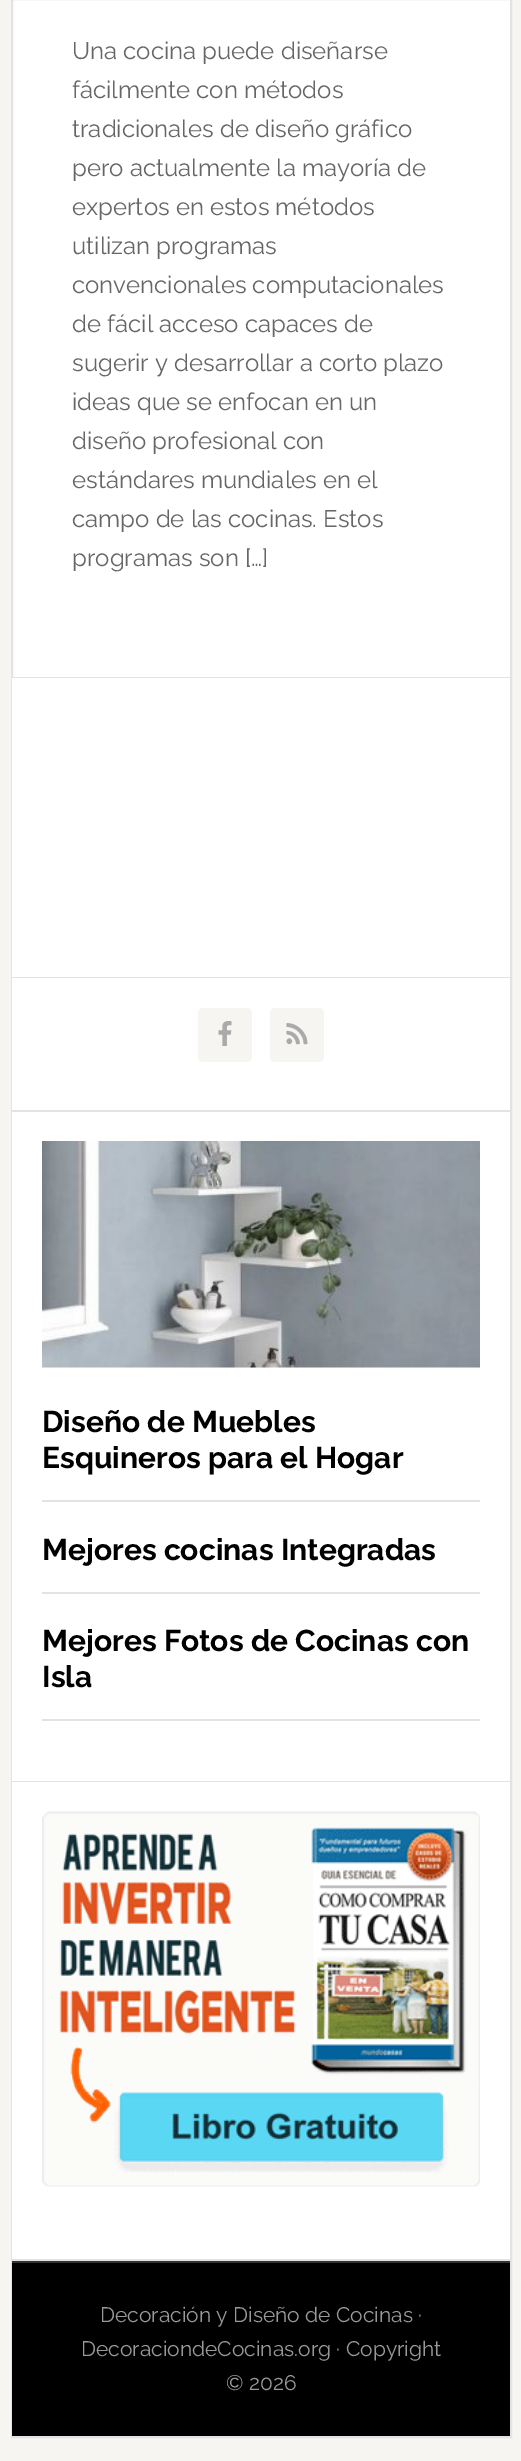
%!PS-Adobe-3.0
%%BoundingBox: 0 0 521 2461
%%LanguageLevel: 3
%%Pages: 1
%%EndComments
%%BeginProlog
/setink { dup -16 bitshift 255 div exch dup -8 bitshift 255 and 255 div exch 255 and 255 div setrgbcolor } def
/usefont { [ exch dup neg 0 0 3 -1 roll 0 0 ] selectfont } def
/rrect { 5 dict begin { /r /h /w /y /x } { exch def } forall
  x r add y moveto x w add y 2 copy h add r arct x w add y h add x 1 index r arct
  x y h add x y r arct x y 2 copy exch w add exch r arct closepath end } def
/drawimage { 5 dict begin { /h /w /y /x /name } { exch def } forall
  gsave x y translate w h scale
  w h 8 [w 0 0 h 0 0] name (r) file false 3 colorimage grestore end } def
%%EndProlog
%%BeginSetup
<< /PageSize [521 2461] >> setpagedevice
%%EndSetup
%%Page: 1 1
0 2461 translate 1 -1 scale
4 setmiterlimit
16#F6F5F2 setink
0 0 521 2461 rectfill
16#FFFFFF setink
13 0 497 677 rectfill
16#E3E3E3 setink
2 setlinewidth
12 -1 499 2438 rectstroke
12 677 498 1 rectfill
/Raleway-Regular 24 usefont
16#666666 setink
[
    [(Una cocina puede diseñarse) 72 59]
    [(fácilmente con métodos) 72 98]
    [(tradicionales de diseño gráfico) 72 137]
    [(pero actualmente la mayoría de) 72 176]
    [(expertos en estos métodos) 72 215]
    [(utilizan programas) 72 254]
    [(convencionales computacionales) 72 293]
    [(de fácil acceso capaces de) 72 332]
    [(sugerir y desarrollar a corto plazo) 72 371]
    [(ideas que se enfocan en un) 72 410]
    [(diseño profesional con) 72 449]
    [(estándares mundiales en el) 72 488]
    [(campo de las cocinas. Estos) 72 527]
    [(programas son […]) 72 566]
] { aload pop moveto show } forall
[
    [12 678 498 299 16#FFFFFF]
    [12 977 498 1 16#E3E3E3]
    [12 978 498 132 16#FFFFFF]
    [12 1110 498 2 16#E3E3E3]
] { aload pop setink rectfill } forall
16#F6F5F2 setink
198 1008 54 54 5 rrect fill
(img1.raw) 218 1021 14 25 drawimage
270 1008 54 54 5 rrect fill
(img2.raw) 286 1023 22 22 drawimage
[
    [12 1112 498 669 16#FFFFFF]
    [12 1781 498 1 16#E3E3E3]
    [42 1500 438 2 16#E3E3E3]
] { aload pop setink rectfill } forall
(img3.raw) 42 1141 438 227 drawimage
/Raleway-Bold 30 usefont
16#000000 setink
42 1432 moveto (Diseño de Muebles) show
42 1468 moveto (Esquineros para el Hogar) show
16#E3E3E3 setink
42 1592 438 2 rectfill
16#000000 setink
42 1560 moveto (Mejores cocinas Integradas) show
16#E3E3E3 setink
42 1719 438 2 rectfill
16#000000 setink
42 1651 moveto (Mejores Fotos de Cocinas con) show
42 1687 moveto (Isla) show
16#FFFFFF setink
12 1782 498 477 rectfill
16#E3E3E3 setink
12 2259 498 2 rectfill
(img4.raw) 42 1811 438 376 drawimage
16#000000 setink
12 2263 498 173 rectfill
16#333333 setink
12 2261 498 2 rectfill
/Raleway-Regular 21 usefont
16#999999 setink
[
    [(Decoración y Diseño de Cocinas ·) 100 2322]
    [(DecoraciondeCocinas.org · Copyright) 81 2356]
    [(© 2026) 226 2390]
] { aload pop moveto show } forall
showpage
%%EOF
